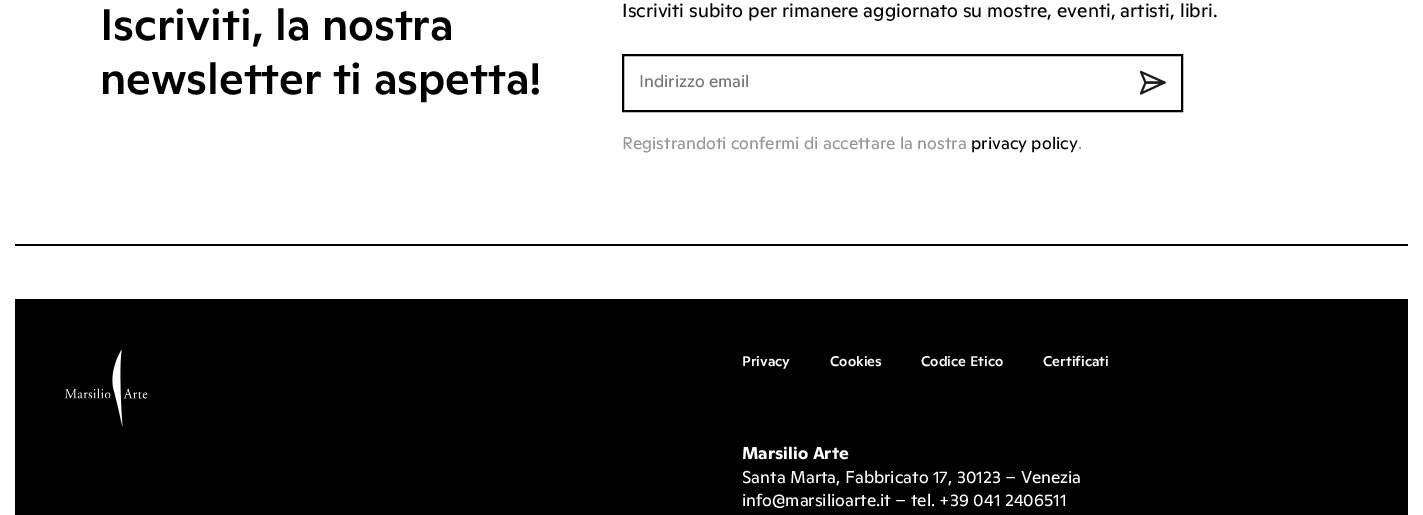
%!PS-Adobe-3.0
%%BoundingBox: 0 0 1423 515
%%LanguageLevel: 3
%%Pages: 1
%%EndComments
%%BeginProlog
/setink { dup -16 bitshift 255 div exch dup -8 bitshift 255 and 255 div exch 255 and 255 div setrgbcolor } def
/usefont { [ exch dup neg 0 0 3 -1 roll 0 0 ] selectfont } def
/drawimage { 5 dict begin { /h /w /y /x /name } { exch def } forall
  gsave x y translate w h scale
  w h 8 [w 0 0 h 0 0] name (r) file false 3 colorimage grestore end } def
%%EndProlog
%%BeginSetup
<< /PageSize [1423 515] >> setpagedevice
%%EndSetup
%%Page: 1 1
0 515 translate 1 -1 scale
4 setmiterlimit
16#FFFFFF setink
0 0 1423 515 rectfill
16#000000 setink
15 244 1393 2 rectfill
/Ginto-Medium 44 usefont
100 40 moveto (Iscriviti, la nostra) show
100 94 moveto (newsletter ti aspetta!) show
/Ginto-Regular 19 usefont
622 17 moveto (Iscriviti subito per rimanere aggiornato su mostre, eventi, artisti, libri.) show
2 setlinewidth
623 55 559 56 rectstroke
/Ginto-Regular 17 usefont
16#757575 setink
639 87 moveto (Indirizzo email) show
16#1D1D1B setink
1 setlinecap
1 setlinejoin
1145.5 82.5 moveto 1164.5 82.5 lineto 1141 72 lineto closepath stroke
gsave
1165.5 71 moveto 1165.5 94.5 lineto 1140 94.5 lineto 1140 71 lineto closepath clip newpath
1145.5 82.5 moveto 1164.5 82.5 lineto 1141 93.5 lineto closepath stroke
grestore
16#969696 setink
622 149 moveto (Registrandoti confermi di accettare la nostra) show
16#000000 setink
971 149 moveto (privacy policy) show
16#969696 setink
1078 149 moveto (.) show
16#000000 setink
15 299 1393 216 rectfill
(img1.raw) 65 350 83 77 drawimage
/Ginto-Medium 14 usefont
16#FFFFFF setink
[
    [(Privacy) 742 366]
    [(Cookies) 830 366]
    [(Codice Etico) 921 366]
    [(Certificati) 1043 366]
] { aload pop moveto show } forall
/Ginto-Bold 17 usefont
742 459 moveto (Marsilio Arte) show
/Ginto-Regular 17 usefont
742 483 moveto (Santa Marta, Fabbricato 17, 30123 – Venezia) show
742 506 moveto (info@marsilioarte.it – tel. +39 041 2406511) show
showpage
%%EOF
